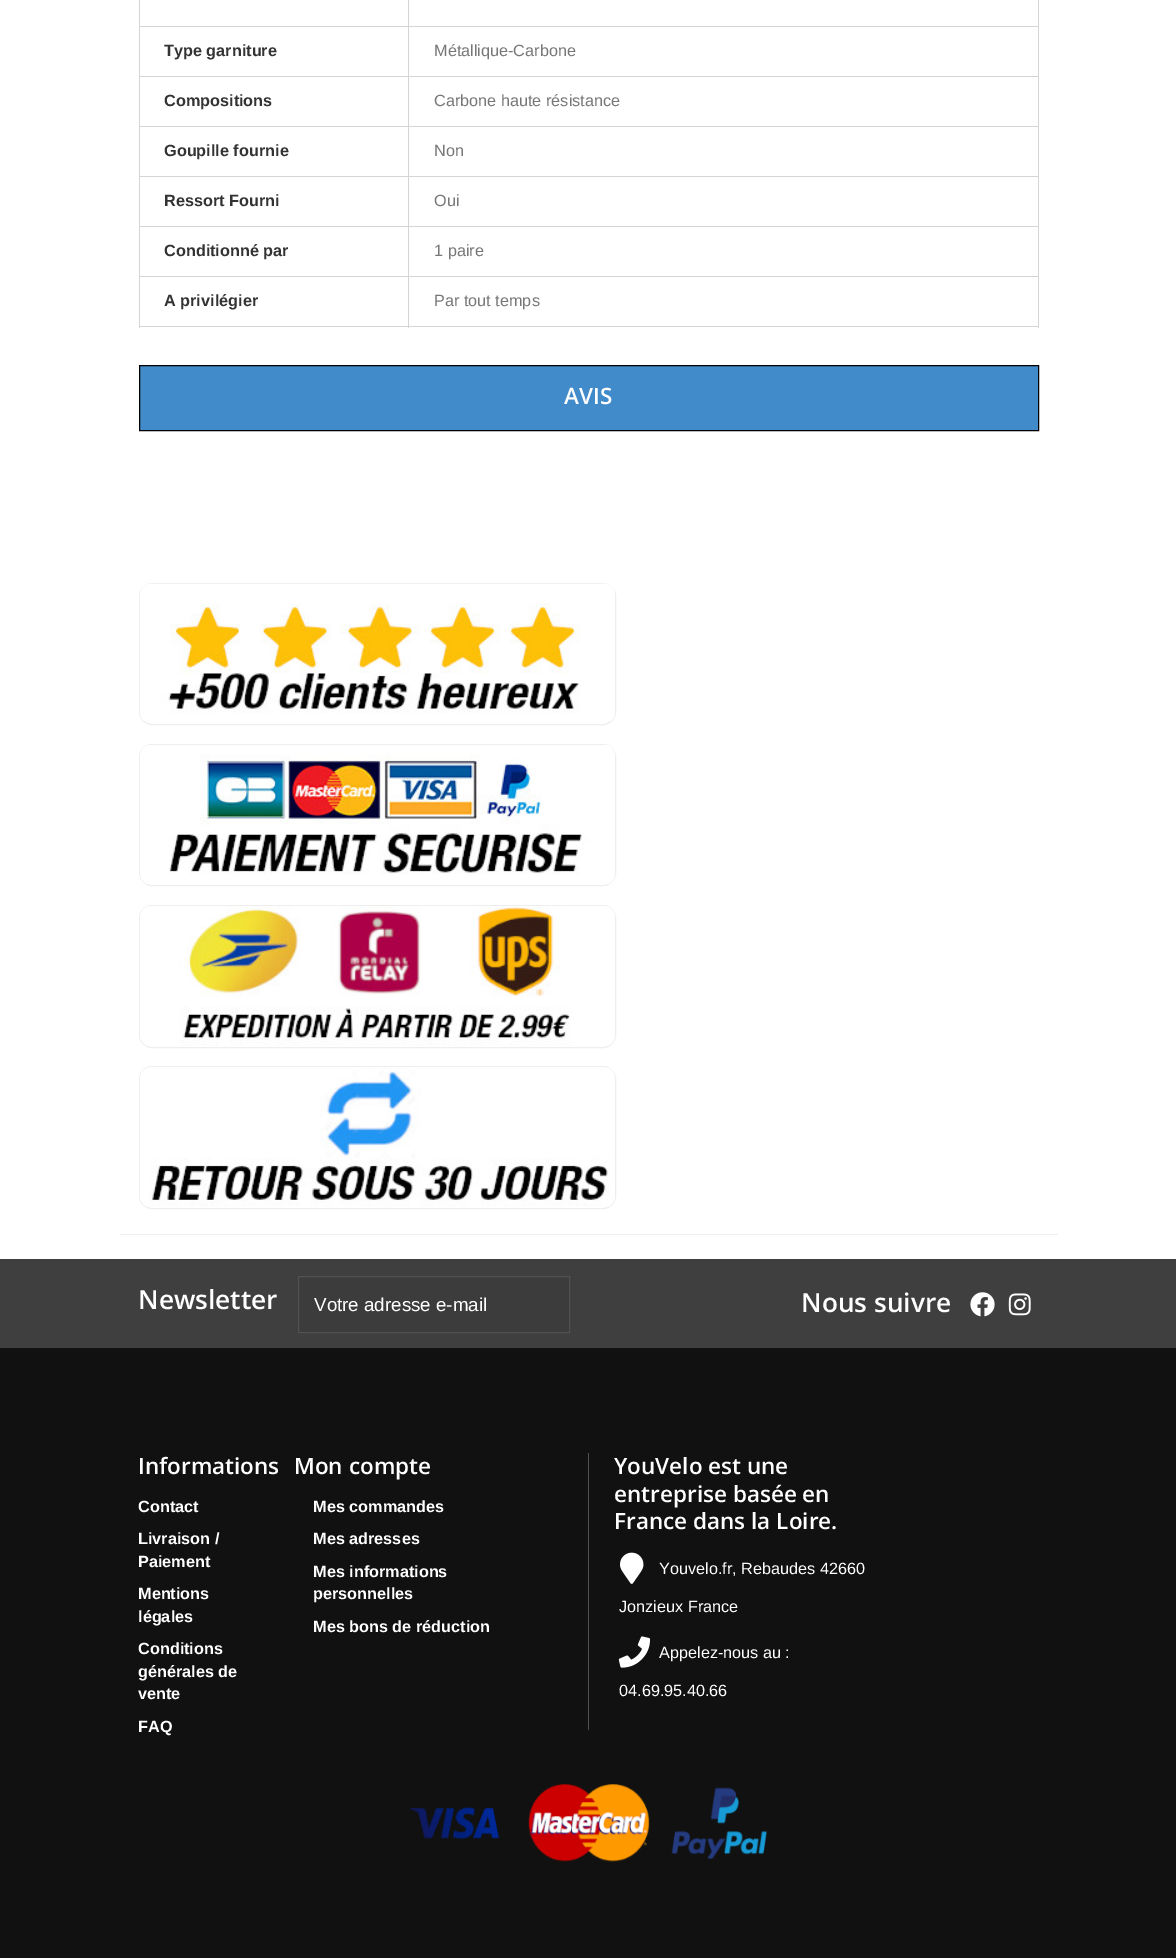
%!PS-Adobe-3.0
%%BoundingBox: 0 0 1176 1958
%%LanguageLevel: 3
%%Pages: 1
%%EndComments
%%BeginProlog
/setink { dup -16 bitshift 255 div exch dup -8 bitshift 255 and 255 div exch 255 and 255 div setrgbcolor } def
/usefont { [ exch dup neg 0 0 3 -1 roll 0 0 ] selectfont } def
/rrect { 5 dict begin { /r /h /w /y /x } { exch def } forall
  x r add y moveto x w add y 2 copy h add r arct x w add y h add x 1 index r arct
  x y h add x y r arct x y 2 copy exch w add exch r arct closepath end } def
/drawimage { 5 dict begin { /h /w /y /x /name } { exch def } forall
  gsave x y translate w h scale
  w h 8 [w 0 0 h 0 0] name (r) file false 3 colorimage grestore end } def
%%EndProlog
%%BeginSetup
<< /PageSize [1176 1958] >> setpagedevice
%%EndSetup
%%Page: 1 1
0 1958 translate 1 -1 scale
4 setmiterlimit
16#FFFFFF setink
0 0 1176 1958 rectfill
16#D6D4D4 setink
139 326 900 1 rectfill
139 26 900 1 rectfill
/LiberationSans-Bold 16.25 usefont
16#333333 setink
164 56 moveto (Type garniture) show
/LiberationSans-Regular 16.25 usefont
16#777777 setink
434 56 moveto (Métallique-Carbone) show
16#D6D4D4 setink
139 76 900 1 rectfill
/LiberationSans-Bold 16.25 usefont
16#333333 setink
164 106 moveto (Compositions) show
/LiberationSans-Regular 16.25 usefont
16#777777 setink
434 106 moveto (Carbone haute résistance) show
16#D6D4D4 setink
139 126 900 1 rectfill
/LiberationSans-Bold 16.25 usefont
16#333333 setink
164 156 moveto (Goupille fournie) show
/LiberationSans-Regular 16.25 usefont
16#777777 setink
434 156 moveto (Non) show
16#D6D4D4 setink
139 176 900 1 rectfill
/LiberationSans-Bold 16.25 usefont
16#333333 setink
164 206 moveto (Ressort Fourni) show
/LiberationSans-Regular 16.25 usefont
16#777777 setink
434 206 moveto (Oui) show
16#D6D4D4 setink
139 226 900 1 rectfill
/LiberationSans-Bold 16.25 usefont
16#333333 setink
164 256 moveto (Conditionné par) show
/LiberationSans-Regular 16.25 usefont
16#777777 setink
434 256 moveto (1 paire) show
[
    [139 276 900 1 16#D6D4D4]
    [408 0 1 328 16#D6D4D4]
    [139 0 1 328 16#D6D4D4]
] { aload pop setink rectfill } forall
/LiberationSans-Bold 16.25 usefont
16#333333 setink
164 306 moveto (A privilégier) show
16#D6D4D4 setink
1038 0 1 328 rectfill
/LiberationSans-Regular 16.25 usefont
16#777777 setink
434 306 moveto (Par tout temps) show
16#428BCA setink
139.5 365.5 moveto 1038.5 365.5 lineto 1038.5 430.5 lineto 139.5 430.5 lineto closepath gsave fill grestore
16#000000 setink
stroke
/OpenSans-SemiBold 22.5 usefont
16#FFFFFF setink
564 404 moveto (AVIS) show
16#EEEEEE setink
120 1234 938 1 rectfill
139.5 583.5 476 141 12.5 rrect stroke
(img1.raw) 140 583 475 138 drawimage
139.5 744.5 476 141 12.5 rrect stroke
(img2.raw) 140 745 475 139 drawimage
139.5 905.5 476 142 12.5 rrect stroke
(img3.raw) 140 906 475 140 drawimage
139.5 1066.5 476 142 12.5 rrect stroke
(img4.raw) 140 1067 475 140 drawimage
16#111111 setink
0 1348 1176 610 rectfill
16#3F3F3F setink
0 1259 1176 89 rectfill
/OpenSans-SemiBold 26.25 usefont
16#FFFFFF setink
138 1309 moveto (Newsletter) show
16#3C3C3C setink
298.5 1276.5 moveto 569.5 1276.5 lineto 569.5 1332.5 lineto 298.5 1332.5 lineto closepath gsave fill grestore
16#515151 setink
stroke
/LiberationSans-Regular 18.75 usefont
16#FFFFFF setink
314 1311 moveto (Votre adresse e-mail) show
/OpenSans-SemiBold 26.25 usefont
801 1312 moveto (Nous suivre) show
(img5.raw) 970 1292 25 25 drawimage
(img6.raw) 1008 1293 23 23 drawimage
/OpenSans-SemiBold 22.5 usefont
138 1474 moveto (Informations) show
/LiberationSans-Bold 16.25 usefont
[
    [(Contact) 138 1512]
    [(Livraison /) 138 1544]
    [(Paiement) 138 1567]
    [(Mentions) 138 1599]
    [(légales) 138 1622]
    [(Conditions) 138 1654]
    [(générales de) 138 1677]
    [(vente) 138 1699]
    [(FAQ) 138 1732]
] { aload pop moveto show } forall
/OpenSans-SemiBold 22.5 usefont
294 1474 moveto (Mon compte) show
/LiberationSans-Bold 16.25 usefont
[
    [(Mes commandes) 313 1512]
    [(Mes adresses) 313 1544]
    [(Mes informations) 313 1577]
    [(personnelles) 313 1599]
    [(Mes bons de réduction) 313 1632]
] { aload pop moveto show } forall
16#515151 setink
588 1453 1 277 rectfill
/OpenSans-SemiBold 22.5 usefont
16#FFFFFF setink
[
    [(YouVelo est une) 614 1474]
    [(entreprise basée en) 614 1502]
    [(France dans la Loire.) 614 1529]
] { aload pop moveto show } forall
(img7.raw) 620 1552 24 32 drawimage
/LiberationSans-Regular 16.25 usefont
659 1574 moveto (Youvelo.fr, Rebaudes 42660) show
619 1612 moveto (Jonzieux France) show
(img8.raw) 618 1636 33 32 drawimage
659 1658 moveto (Appelez-nous au :) show
619 1696 moveto (04.69.95.40.66) show
(img9.raw) 409 1784 358 78 drawimage
showpage
%%EOF
